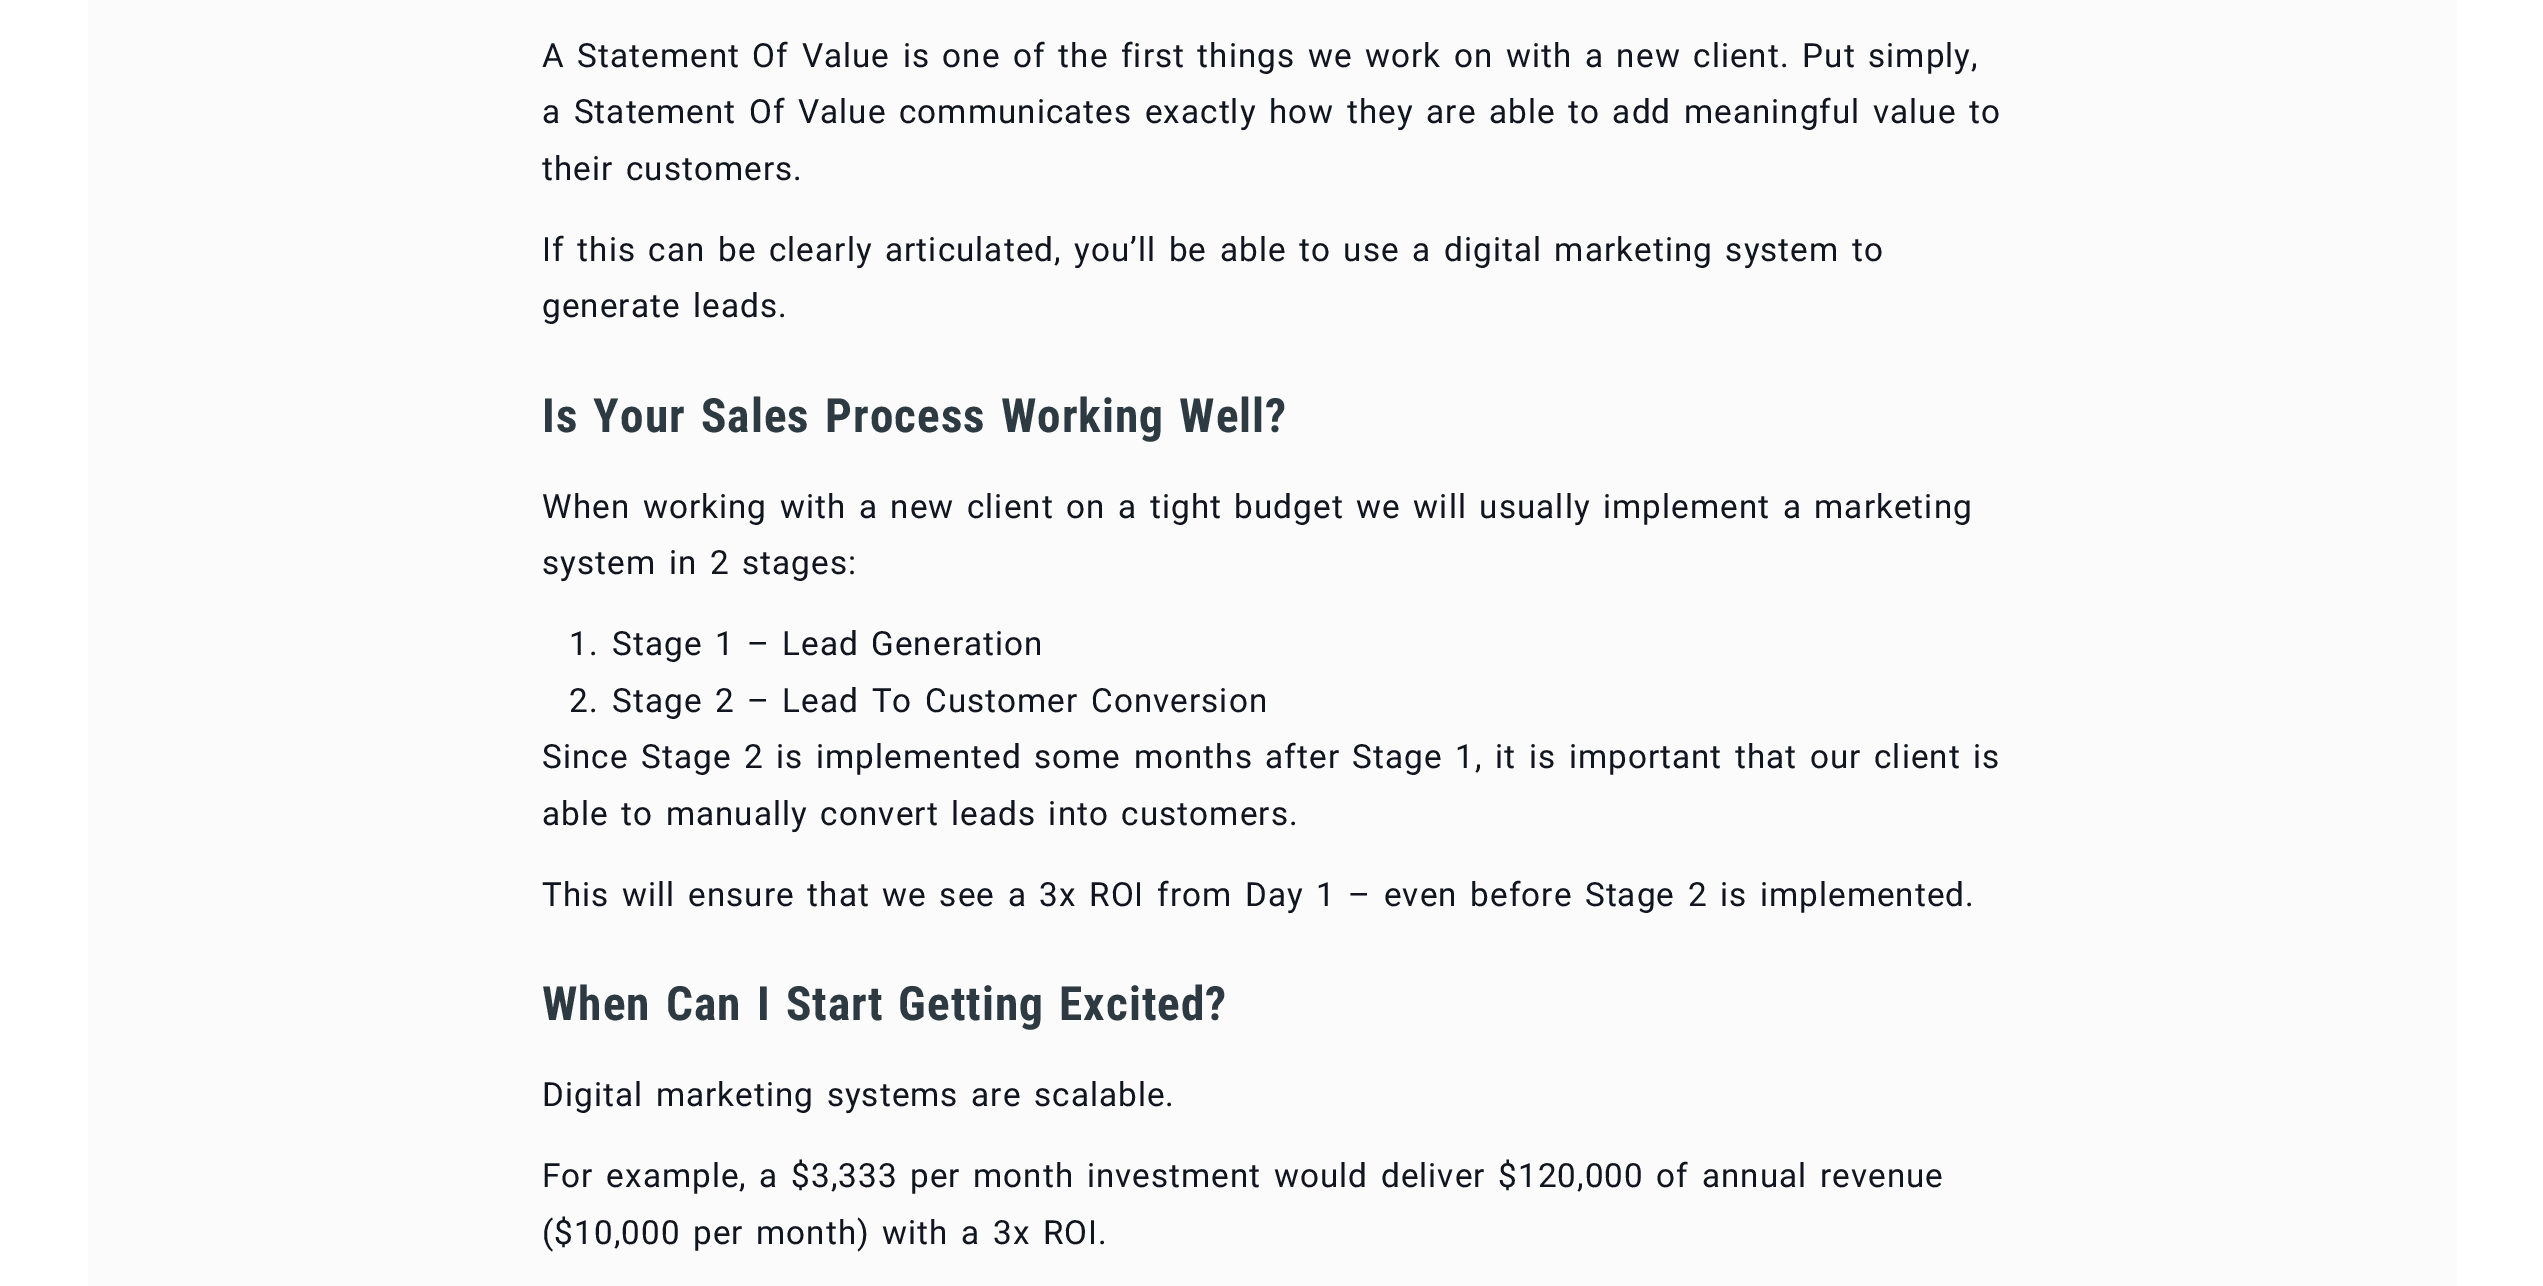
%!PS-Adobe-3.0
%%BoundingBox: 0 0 2543 1286
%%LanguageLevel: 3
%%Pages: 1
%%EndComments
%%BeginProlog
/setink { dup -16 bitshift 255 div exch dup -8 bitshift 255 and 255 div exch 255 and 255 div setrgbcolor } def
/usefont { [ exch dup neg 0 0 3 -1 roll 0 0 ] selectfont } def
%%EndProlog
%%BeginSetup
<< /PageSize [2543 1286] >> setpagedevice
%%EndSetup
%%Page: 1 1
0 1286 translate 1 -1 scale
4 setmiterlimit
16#FFFFFF setink
0 0 2543 1286 rectfill
16#FBFBFB setink
88 0 2369 1286 rectfill
/Roboto-Regular 33.25 usefont
16#10151F setink
542 67 moveto 3.25 0 32 1.05 0 (A Statement Of Value is one of the first things we work on with a new client. Put simply,) awidthshow
542 123 moveto 3.25 0 32 1.05 0 (a Statement Of Value communicates exactly how they are able to add meaningful value to) awidthshow
542 180 moveto 3.25 0 32 1.05 0 (their customers.) awidthshow
542 261 moveto 3.25 0 32 1.05 0 (If this can be clearly articulated, you’ll be able to use a digital marketing system to) awidthshow
542 317 moveto 3.25 0 32 1.05 0 (generate leads.) awidthshow
/RobotoCondensed-Bold 47.25 usefont
16#2D3A42 setink
542 432 moveto 3.25 0 32 1.05 0 (Is Your Sales Process Working Well?) awidthshow
/Roboto-Regular 33.25 usefont
16#10151F setink
542 518 moveto 3.25 0 32 1.05 0 (When working with a new client on a tight budget we will usually implement a marketing) awidthshow
542 574 moveto 3.25 0 32 1.05 0 (system in 2 stages:) awidthshow
569 655 moveto 1.05 0 (1.) ashow
612 655 moveto 3.25 0 32 1.05 0 (Stage 1 –) awidthshow
782 655 moveto 3.25 0 32 1.05 0 (Lead Generation) awidthshow
569 712 moveto 1.05 0 (2.) ashow
612 712 moveto 3.25 0 32 1.05 0 (Stage 2 – Lead To Customer Conversion) awidthshow
542 768 moveto 3.25 0 32 1.05 0 (Since Stage 2 is implemented some months after Stage 1, it is important that our client is) awidthshow
542 825 moveto 3.25 0 32 1.05 0 (able to manually convert leads into customers.) awidthshow
542 906 moveto 3.25 0 32 1.05 0 (This will ensure that we see a 3x ROI from Day 1 – even before Stage 2 is implemented.) awidthshow
/RobotoCondensed-Bold 47.25 usefont
16#2D3A42 setink
542 1020 moveto 3.25 0 32 1.05 0 (When Can I Start Getting Excited?) awidthshow
/Roboto-Regular 33.25 usefont
16#10151F setink
542 1106 moveto 3.25 0 32 1.05 0 (Digital marketing systems are scalable.) awidthshow
542 1187 moveto 3.25 0 32 1.05 0 (For example, a $3,333 per month investment would deliver $120,000 of annual revenue) awidthshow
542 1244 moveto 3.25 0 32 1.05 0 (\($10,000 per month\) with a 3x ROI.) awidthshow
showpage
%%EOF
